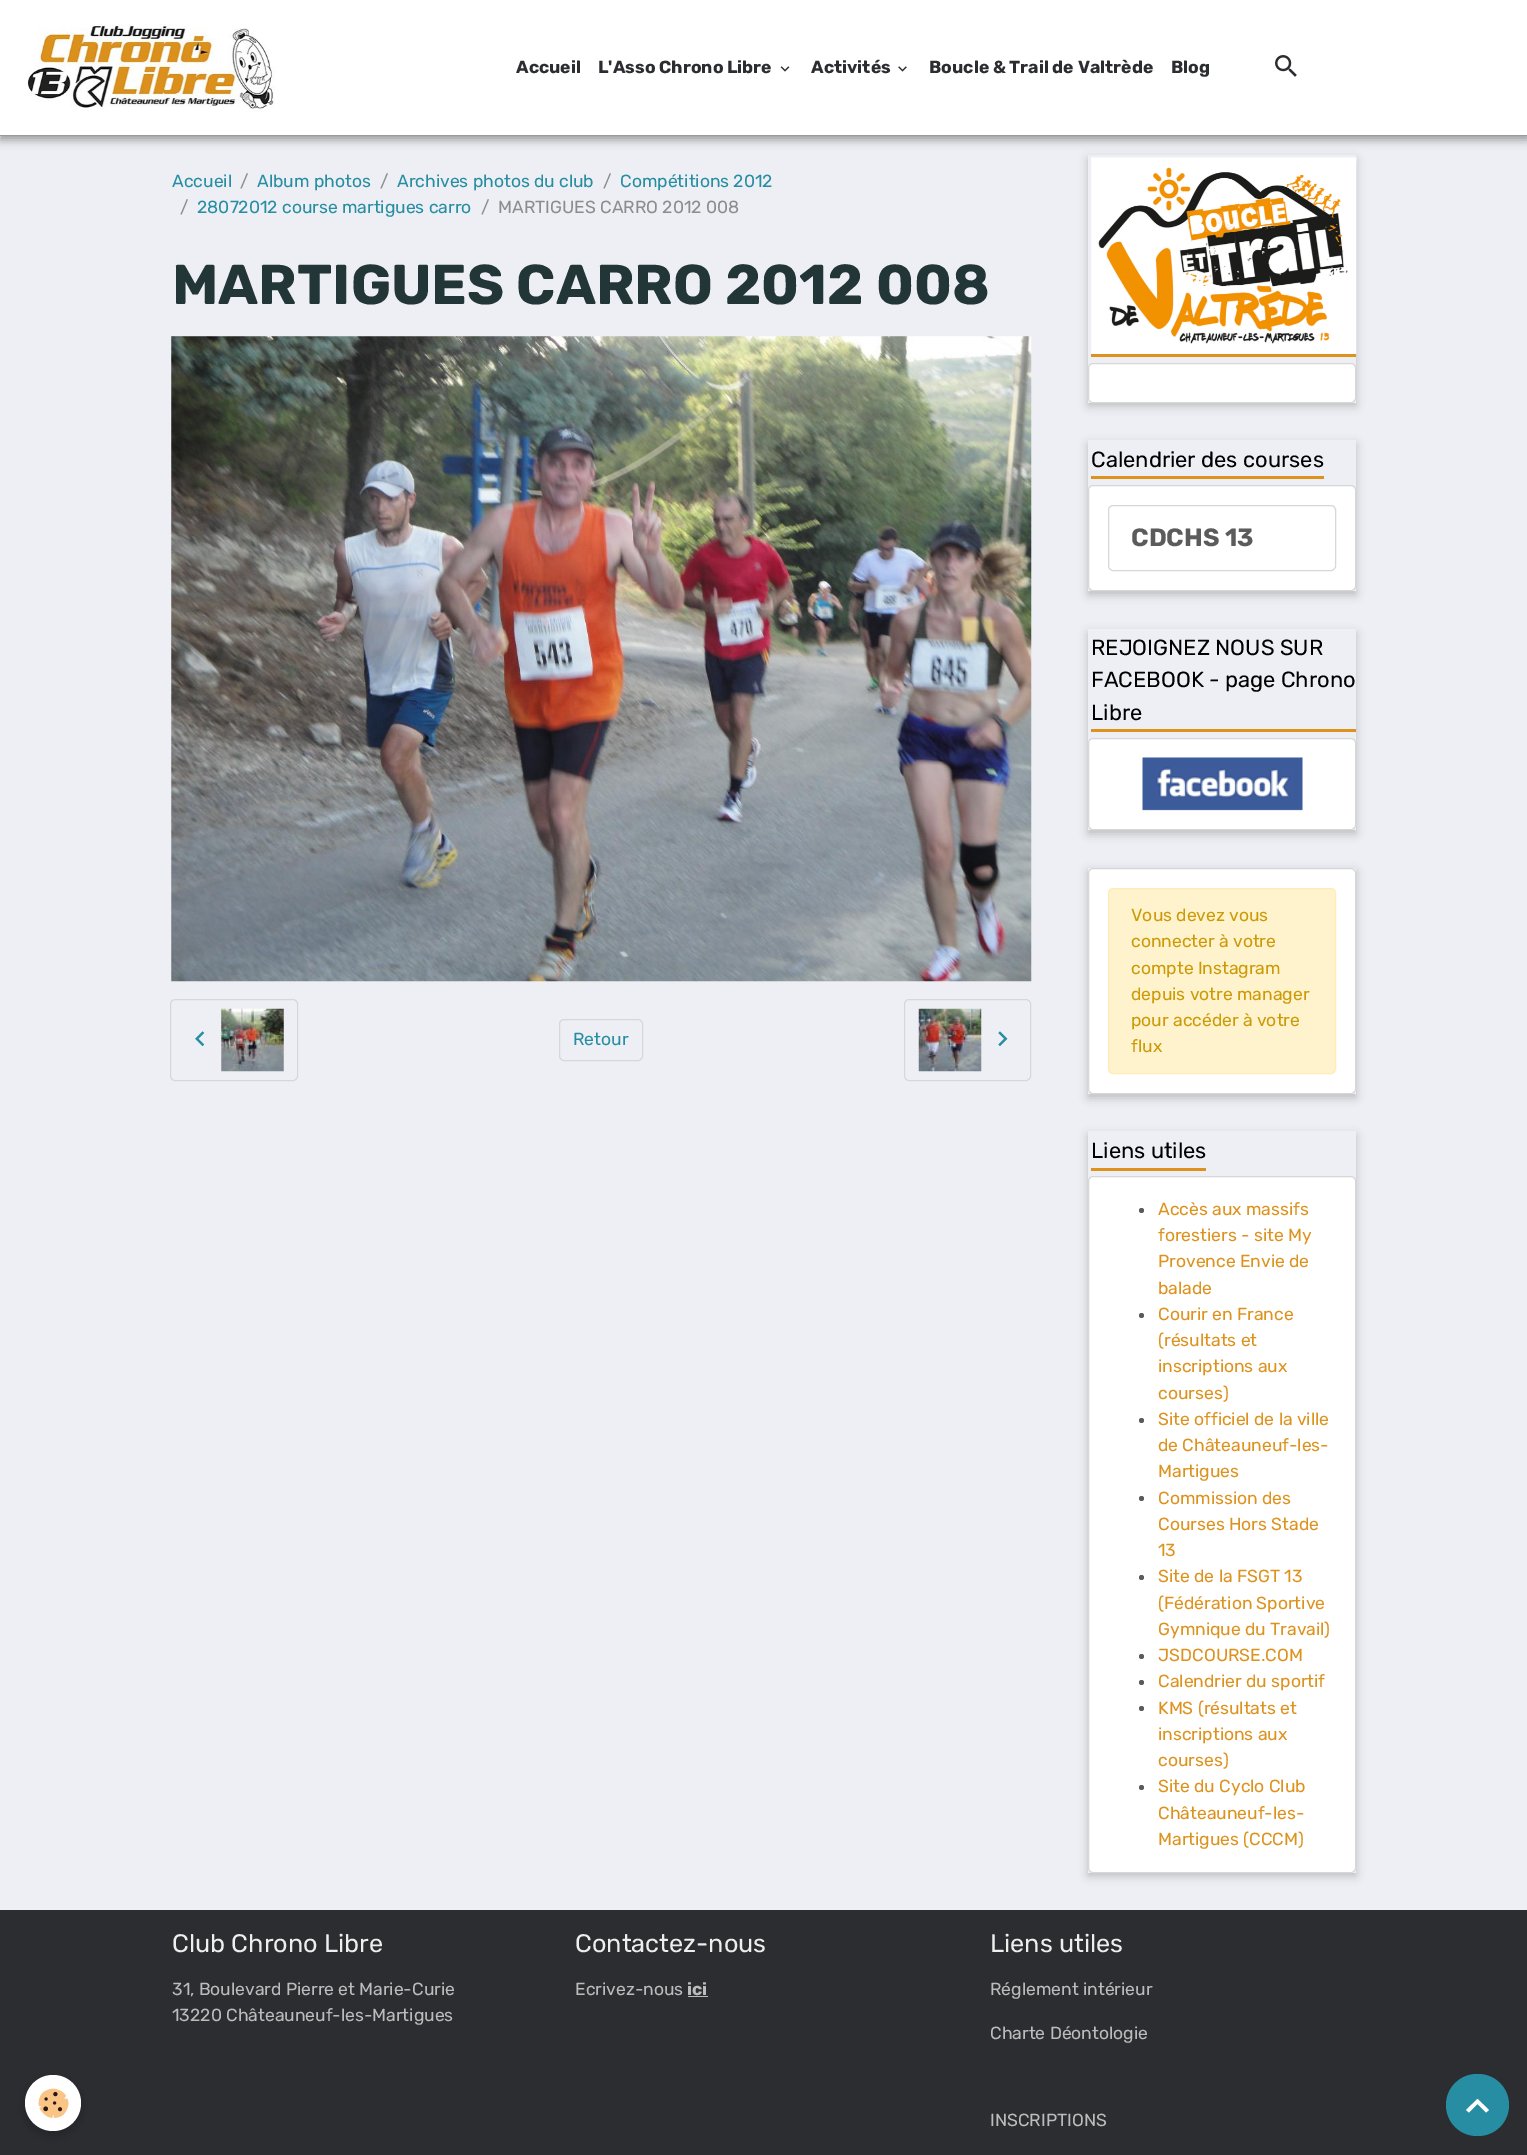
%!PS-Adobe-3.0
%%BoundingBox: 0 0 1527 2155
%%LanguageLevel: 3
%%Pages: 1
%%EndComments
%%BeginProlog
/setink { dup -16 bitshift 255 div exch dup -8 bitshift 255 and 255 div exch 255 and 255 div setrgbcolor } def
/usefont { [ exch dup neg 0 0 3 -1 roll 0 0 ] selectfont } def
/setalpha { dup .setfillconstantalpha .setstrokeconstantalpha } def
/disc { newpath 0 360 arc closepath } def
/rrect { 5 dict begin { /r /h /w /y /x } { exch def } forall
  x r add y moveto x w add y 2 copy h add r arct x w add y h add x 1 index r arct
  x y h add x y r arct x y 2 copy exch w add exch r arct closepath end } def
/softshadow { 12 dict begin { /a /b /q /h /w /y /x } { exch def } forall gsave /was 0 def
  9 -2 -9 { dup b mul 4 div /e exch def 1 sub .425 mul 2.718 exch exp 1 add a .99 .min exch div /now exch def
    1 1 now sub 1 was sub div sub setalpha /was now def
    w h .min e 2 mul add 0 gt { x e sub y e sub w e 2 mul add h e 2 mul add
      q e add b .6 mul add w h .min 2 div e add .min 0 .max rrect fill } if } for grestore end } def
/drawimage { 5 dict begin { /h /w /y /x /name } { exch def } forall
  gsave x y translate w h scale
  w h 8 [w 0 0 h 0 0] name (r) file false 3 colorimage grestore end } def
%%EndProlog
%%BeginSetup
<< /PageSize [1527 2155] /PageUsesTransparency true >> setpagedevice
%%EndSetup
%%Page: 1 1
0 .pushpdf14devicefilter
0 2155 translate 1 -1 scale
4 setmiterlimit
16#EDEFF4 setink
0 0 1527 2155 rectfill
16#999999 setink
0 4 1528 136 0 4.5 1 softshadow
16#FFFFFF setink
0 0 1527 135 rectfill
16#999999 setink
0 135 1527 1 rectfill
(img1.raw) 27 24 248 88 drawimage
/Rubik-Bold 17.5 usefont
16#2C2D31 setink
516 73 moveto (Accueil) show
598 73 moveto (L'Asso Chrono Libre) show
(img2.raw) 780 66 10 6 drawimage
811 73 moveto (Activités) show
(img3.raw) 898 66 9 6 drawimage
929 73 moveto (Boucle & Trail de Valtrède) show
1171 73 moveto (Blog) show
(img4.raw) 1275 55 22 22 drawimage
/Rubik-Regular 17.5 usefont
16#268DA2 setink
172 187 moveto (Accueil) show
16#8C8C8C setink
240 187 moveto (/) show
16#268DA2 setink
257 187 moveto (Album photos) show
16#8C8C8C setink
380 187 moveto (/) show
16#268DA2 setink
397 187 moveto (Archives photos du club) show
16#8C8C8C setink
603 187 moveto (/) show
16#268DA2 setink
620 187 moveto (Compétitions 2012) show
16#8C8C8C setink
180 213 moveto (/) show
16#268DA2 setink
197 213 moveto (28072012 course martigues carro) show
16#8C8C8C setink
481 213 moveto (/) show
498 213 moveto (MARTIGUES CARRO 2012 008) show
/Rubik-Bold 56 usefont
16#233637 setink
172 304 moveto (MARTIGUES CARRO 2012 008) show
(img5.raw) 171 336 861 646 drawimage
16#D7D7D7 setink
170.5 999.5 127 81 4.5 rrect stroke
(img6.raw) 195 1031 10 16 drawimage
(img7.raw) 221 1008 63 64 drawimage
559.5 1019.5 83 41 4.5 rrect stroke
/Rubik-Regular 17.5 usefont
16#268DA2 setink
573 1045 moveto (Retour) show
16#D7D7D7 setink
904.5 999.5 126 81 4.5 rrect stroke
(img8.raw) 918 1008 64 64 drawimage
(img9.raw) 998 1031 10 16 drawimage
gsave
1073 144 moveto 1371 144 lineto 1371 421 lineto 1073 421 lineto closepath 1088 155 moveto 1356 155 lineto 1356 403 lineto 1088 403 lineto closepath eoclip newpath
16#BCBCBC setink
1088 159 268 247 0 4.5 1 softshadow
grestore
16#DD921D setink
1091 354 265 3 rectfill
(img10.raw) 1091 157 266 197 drawimage
16#FFFFFF setink
1088.5 363.5 267 39 4.5 rrect gsave fill grestore
16#D7D7D7 setink
stroke
gsave
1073 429 moveto 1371 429 lineto 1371 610 lineto 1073 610 lineto closepath 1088 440 moveto 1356 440 lineto 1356 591 lineto 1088 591 lineto closepath eoclip newpath
16#BCBCBC setink
1088 444 268 151 0 4.5 1 softshadow
grestore
16#DD921D setink
1091 476 233 3 rectfill
/Rubik-Regular 21.9 usefont
16#000000 setink
1091 467 moveto (Calendrier des courses) show
16#FFFFFF setink
1088.5 485.5 267 105 4.5 rrect gsave fill grestore
16#D7D7D7 setink
stroke
1108.5 505.5 227 65 4.5 rrect stroke
/Rubik-Bold 25 usefont
16#5B5B5B setink
1131 546 moveto (CDCHS 13) show
gsave
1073 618 moveto 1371 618 lineto 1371 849 lineto 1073 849 lineto closepath 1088 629 moveto 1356 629 lineto 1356 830 lineto 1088 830 lineto closepath eoclip newpath
16#BCBCBC setink
1088 633 268 201 0 4.5 1 softshadow
grestore
16#DD921D setink
1091 729 265 3 rectfill
/Rubik-Regular 21.9 usefont
16#000000 setink
[
    [(REJOIGNEZ NOUS SUR) 1091 655]
    [(FACEBOOK - page Chrono) 1091 687]
    [(Libre) 1091 720]
] { aload pop moveto show } forall
16#FFFFFF setink
1088.5 738.5 267 91 4.5 rrect gsave fill grestore
16#D7D7D7 setink
stroke
(img11.raw) 1142 757 161 54 drawimage
gsave
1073 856 moveto 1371 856 lineto 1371 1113 lineto 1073 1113 lineto closepath 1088 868 moveto 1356 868 lineto 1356 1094 lineto 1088 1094 lineto closepath eoclip newpath
16#BCBCBC setink
1088 871 268 227 0 4.5 1 softshadow
grestore
16#FFFFFF setink
1088.5 868.5 267 225 4.5 rrect gsave fill grestore
16#D7D7D7 setink
stroke
16#FFF3CD setink
1108.5 888.5 227 185 4.5 rrect gsave fill grestore
16#FFECB5 setink
stroke
/Rubik-Regular 17.5 usefont
16#CC9A06 setink
[
    [(Vous devez vous) 1131 921]
    [(connecter à votre) 1131 947]
    [(compte Instagram) 1131 974]
    [(depuis votre manager) 1131 1000]
    [(pour accéder à votre) 1131 1026]
    [(flux) 1131 1052]
] { aload pop moveto show } forall
gsave
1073 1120 moveto 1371 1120 lineto 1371 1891 lineto 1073 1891 lineto closepath 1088 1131 moveto 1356 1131 lineto 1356 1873 lineto 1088 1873 lineto closepath eoclip newpath
16#BCBCBC setink
1088 1135 268 741 0 4.5 1 softshadow
grestore
16#DD921D setink
1091 1168 115 3 rectfill
/Rubik-Regular 21.9 usefont
16#000000 setink
1091 1158 moveto (Liens utiles) show
16#FFFFFF setink
1088.5 1176.5 267 696 4.5 rrect gsave fill grestore
16#D7D7D7 setink
stroke
16#5B5B5B setink
1141.5 1210.5 2.5 disc fill
/Rubik-Regular 17.5 usefont
16#DD921D setink
[
    [(Accès aux massifs) 1158 1215]
    [(forestiers - site My) 1158 1241]
    [(Provence Envie de) 1158 1267]
    [(balade) 1158 1294]
] { aload pop moveto show } forall
16#5B5B5B setink
1141.5 1315.5 2.5 disc fill
16#DD921D setink
[
    [(Courir en France) 1158 1320]
    [(\(résultats et) 1158 1346]
    [(inscriptions aux) 1158 1372]
    [(courses\)) 1158 1399]
] { aload pop moveto show } forall
16#5B5B5B setink
1141.5 1420.5 2.5 disc fill
16#DD921D setink
[
    [(Site officiel de la ville) 1158 1425]
    [(de Châteauneuf-les-) 1158 1451]
    [(Martigues) 1158 1477]
] { aload pop moveto show } forall
16#5B5B5B setink
1141.5 1498.5 2.5 disc fill
16#DD921D setink
[
    [(Commission des) 1158 1504]
    [(Courses Hors Stade) 1158 1530]
    [(13) 1158 1556]
] { aload pop moveto show } forall
16#5B5B5B setink
1141.5 1577.5 2.5 disc fill
16#DD921D setink
[
    [(Site de la FSGT 13) 1158 1582]
    [(\(Fédération Sportive) 1158 1609]
    [(Gymnique du Travail\)) 1158 1635]
] { aload pop moveto show } forall
16#5B5B5B setink
1141.5 1656.5 2.5 disc fill
16#DD921D setink
1158 1661 moveto (JSDCOURSE.COM) show
16#5B5B5B setink
1141.5 1682.5 2.5 disc fill
16#DD921D setink
1158 1687 moveto (Calendrier du sportif) show
16#5B5B5B setink
1141.5 1708.5 2.5 disc fill
16#DD921D setink
[
    [(KMS \(résultats et) 1158 1714]
    [(inscriptions aux) 1158 1740]
    [(courses\)) 1158 1766]
] { aload pop moveto show } forall
16#5B5B5B setink
1141.5 1787.5 2.5 disc fill
16#DD921D setink
[
    [(Site du Cyclo Club) 1158 1792]
    [(Châteauneuf-les-) 1158 1819]
    [(Martigues \(CCCM\)) 1158 1845]
] { aload pop moveto show } forall
16#2C2D31 setink
0 1910 1527 245 rectfill
16#000000 setink
25 2079 56 56 28 6 0.24 softshadow
16#FFFFFF setink
53 2103 28 disc fill
(img12.raw) 38 2088 31 30 drawimage
/Rubik-Regular 25.25 usefont
16#EEEEEE setink
172 1952 moveto (Club Chrono Libre) show
/Rubik-Regular 17.5 usefont
16#BCBCBC setink
172 1995 moveto (31, Boulevard Pierre et Marie-Curie) show
172 2021 moveto (13220 Châteauneuf-les-Martigues) show
/Rubik-Regular 25.25 usefont
16#EEEEEE setink
575 1952 moveto (Contactez-nous) show
/Rubik-Regular 17.5 usefont
16#BCBCBC setink
575 1995 moveto (Ecrivez-nous) show
/Rubik-Bold 17.5 usefont
687 1995 moveto (ici) show
688 1996 20 1 rectfill
/Rubik-Regular 25.25 usefont
16#EEEEEE setink
990 1952 moveto (Liens utiles) show
/Rubik-Regular 17.5 usefont
16#BCBCBC setink
[
    [(Réglement intérieur) 990 1995]
    [(Charte Déontologie) 990 2039]
    [(INSCRIPTIONS) 990 2126]
] { aload pop moveto show } forall
16#268DA2 setink
1446 2074 63 62 31 rrect fill
16#FFFFFF setink
1477.5 2099 moveto 1489 2110 lineto 1486 2112.5 lineto 1477.5 2104 lineto 1469 2112.5 lineto 1466 2110 lineto closepath fill
.poppdf14devicefilter showpage
%%EOF
